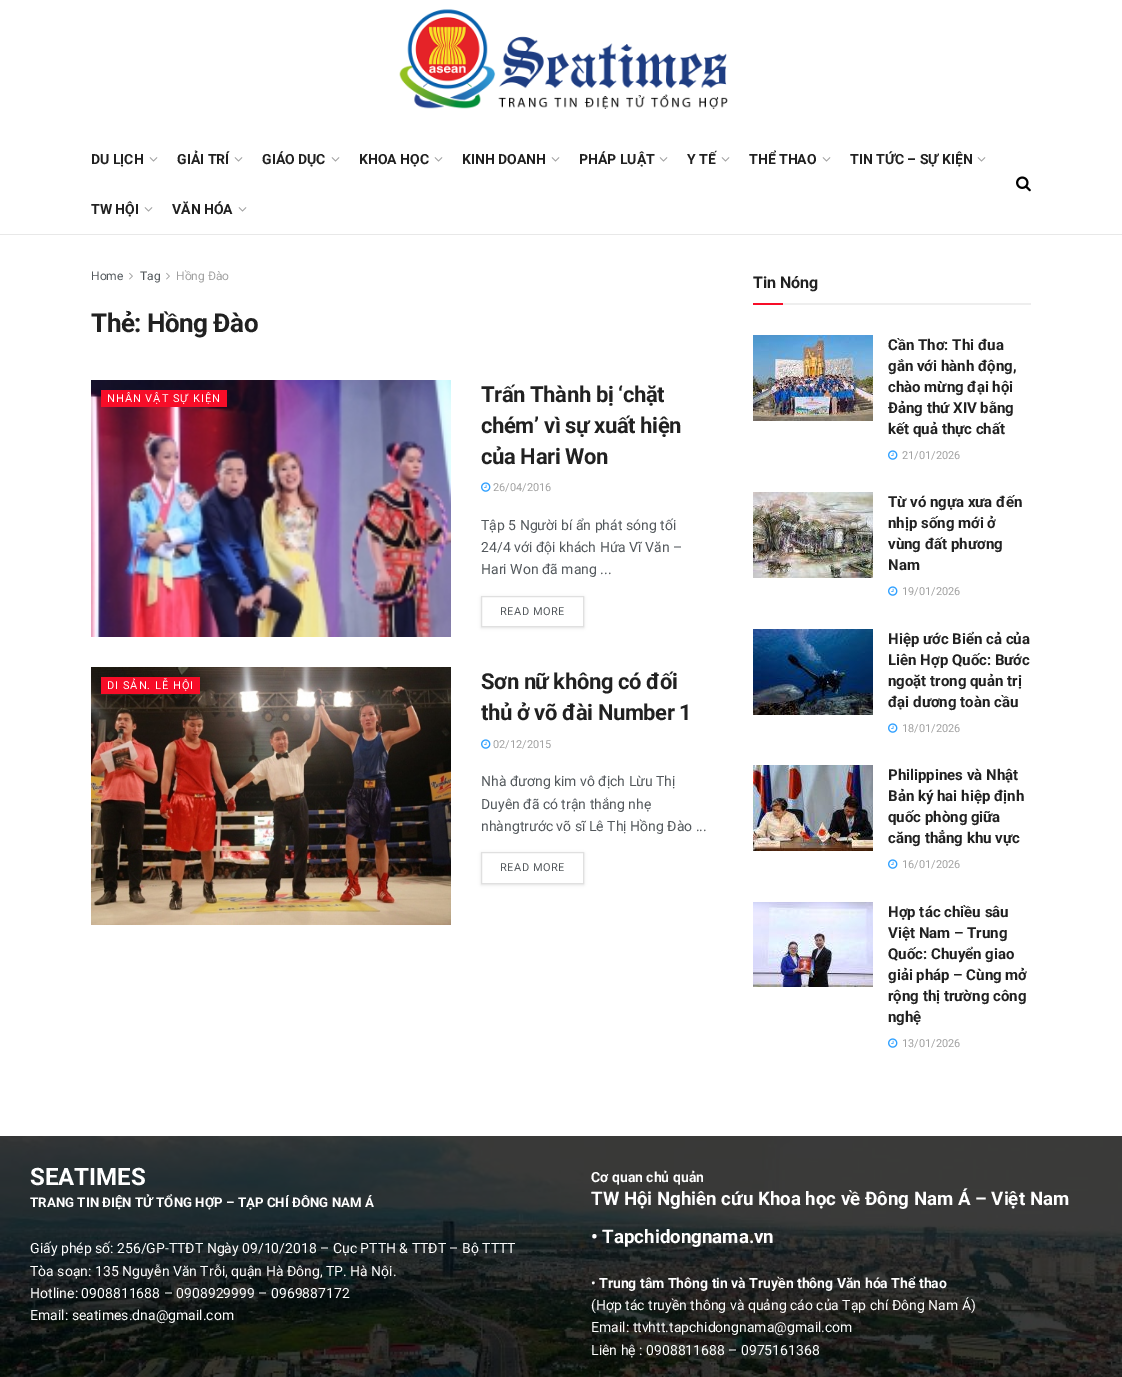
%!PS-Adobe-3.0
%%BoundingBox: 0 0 1122 1377
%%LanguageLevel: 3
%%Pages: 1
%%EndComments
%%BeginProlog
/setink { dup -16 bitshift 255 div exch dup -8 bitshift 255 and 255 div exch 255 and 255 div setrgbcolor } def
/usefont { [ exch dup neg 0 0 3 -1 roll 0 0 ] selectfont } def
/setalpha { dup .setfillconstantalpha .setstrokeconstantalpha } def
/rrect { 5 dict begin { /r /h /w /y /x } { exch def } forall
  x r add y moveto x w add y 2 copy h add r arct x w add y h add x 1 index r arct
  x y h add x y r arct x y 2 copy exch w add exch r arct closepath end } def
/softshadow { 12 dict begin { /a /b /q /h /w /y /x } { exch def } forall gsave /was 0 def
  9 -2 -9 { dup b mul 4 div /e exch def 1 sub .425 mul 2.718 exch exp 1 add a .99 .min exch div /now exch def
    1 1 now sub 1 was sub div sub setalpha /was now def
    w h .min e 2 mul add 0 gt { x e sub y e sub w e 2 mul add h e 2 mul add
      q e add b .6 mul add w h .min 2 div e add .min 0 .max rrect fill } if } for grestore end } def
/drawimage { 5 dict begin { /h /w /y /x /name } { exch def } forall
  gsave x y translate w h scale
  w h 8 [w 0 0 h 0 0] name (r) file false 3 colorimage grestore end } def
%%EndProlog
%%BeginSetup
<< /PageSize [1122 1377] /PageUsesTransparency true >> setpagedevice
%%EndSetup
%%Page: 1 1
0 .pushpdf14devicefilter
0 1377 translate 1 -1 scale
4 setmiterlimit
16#FFFFFF setink
0 0 1122 1377 rectfill
(img1.raw) 399 9 329 100 drawimage
16#E8E8E8 setink
0 234 1122 1 rectfill
/Roboto-Bold 14 usefont
16#212121 setink
91 164 moveto (DU LỊCH) show
(img2.raw) 149 157 9 5 drawimage
177 164 moveto (GIẢI TRÍ) show
(img2.raw) 234 157 9 5 drawimage
262 164 moveto (GIÁO DỤC) show
(img2.raw) 331 157 9 5 drawimage
359 164 moveto (KHOA HỌC) show
(img2.raw) 434 157 9 5 drawimage
462 164 moveto (KINH DOANH) show
(img2.raw) 551 157 9 5 drawimage
579 164 moveto (PHÁP LUẬT) show
(img2.raw) 659 157 9 5 drawimage
687 164 moveto (Y TẾ) show
(img2.raw) 721 157 9 5 drawimage
749 164 moveto (THỂ THAO) show
(img2.raw) 822 157 9 5 drawimage
850 164 moveto (TIN TỨC – SỰ KIỆN) show
(img2.raw) 977 157 9 5 drawimage
91 214 moveto (TW HỘI) show
(img2.raw) 144 207 9 5 drawimage
172 214 moveto (VĂN HÓA) show
(img2.raw) 238 207 9 5 drawimage
(img3.raw) 1016 176 15 16 drawimage
/Roboto-Regular 12 usefont
16#53585C setink
91 280 moveto (Home) show
(img4.raw) 129 272 4 8 drawimage
140 280 moveto (Tag) show
(img4.raw) 166 272 4 8 drawimage
16#A0A0A0 setink
176 280 moveto (Hồng Đào) show
/Roboto-Bold 26 usefont
16#212121 setink
91 332 moveto -0.5 0 (Thẻ: Hồng Đào) ashow
(img5.raw) 91 380 360 257 drawimage
16#F70D28 setink
101 390 126 17 rectfill
/Roboto-Regular 11 usefont
16#FFFFFF setink
107 402 moveto 1 0 (NHÂN VẬT SỰ KIỆN) ashow
/Roboto-Bold 22 usefont
16#212121 setink
481 402 moveto -0.4 0 (Trấn Thành bị ‘chặt) ashow
481 433 moveto -0.4 0 (chém’ vì sự xuất hiện) ashow
481 464 moveto -0.4 0 (của Hari Won) ashow
(img6.raw) 481 482 10 10 drawimage
/Roboto-Regular 11 usefont
16#A0A0A0 setink
493 491 moveto (26/04/2016) show
/Roboto-Regular 14 usefont
16#53585C setink
[
    [(Tập 5 Người bí ẩn phát sóng tối) 481 530]
    [(24/4 với đội khách Hứa Vĩ Văn –) 481 552]
    [(Hari Won đã mang ...) 481 574]
] { aload pop moveto show } forall
gsave
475 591 moveto 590 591 lineto 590 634 lineto 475 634 lineto closepath 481 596 moveto 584 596 lineto 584 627 lineto 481 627 lineto closepath eoclip newpath
16#000000 setink
481 597 103 31 0 1.5 0.1 softshadow
grestore
16#E0E0E0 setink
481.5 596.5 102 30 rectstroke
/Roboto-Regular 11 usefont
16#53585C setink
500 615 moveto 0.5 0 (READ MORE) ashow
(img7.raw) 91 667 360 258 drawimage
16#F70D28 setink
101 677 99 17 rectfill
16#FFFFFF setink
107 689 moveto 1 0 (DI SẢN. LỄ HỘI) ashow
/Roboto-Bold 22 usefont
16#212121 setink
481 689 moveto -0.4 0 (Sơn nữ không có đối) ashow
481 720 moveto -0.4 0 (thủ ở võ đài Number 1) ashow
(img6.raw) 481 739 10 10 drawimage
/Roboto-Regular 11 usefont
16#A0A0A0 setink
493 748 moveto (02/12/2015) show
/Roboto-Regular 14 usefont
16#53585C setink
[
    [(Nhà đương kim vô địch Lừu Thị) 481 786]
    [(Duyên đã có trận thắng nhẹ) 481 809]
    [(nhàngtrước võ sĩ Lê Thị Hồng Đào ...) 481 831]
] { aload pop moveto show } forall
gsave
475 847 moveto 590 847 lineto 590 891 lineto 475 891 lineto closepath 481 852 moveto 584 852 lineto 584 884 lineto 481 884 lineto closepath eoclip newpath
16#000000 setink
481 853 103 32 0 1.5 0.1 softshadow
grestore
16#E0E0E0 setink
481.5 852.5 102 31 rectstroke
/Roboto-Regular 11 usefont
16#53585C setink
500 871 moveto 0.5 0 (READ MORE) ashow
16#EEEEEE setink
783 303 248 2 rectfill
/Roboto-Bold 16 usefont
16#212121 setink
753 288 moveto (Tin Nóng) show
16#F70D28 setink
753 303 30 2 rectfill
(img8.raw) 753 335 120 86 drawimage
/Roboto-Bold 15 usefont
16#212121 setink
[
    [(Cần Thơ: Thi đua) 888 350]
    [(gắn với hành động,) 888 371]
    [(chào mừng đại hội) 888 392]
    [(Đảng thứ XIV bằng) 888 413]
    [(kết quả thực chất) 888 434]
] { aload pop moveto show } forall
(img6.raw) 888 450 10 10 drawimage
/Roboto-Regular 11 usefont
16#A0A0A0 setink
902 459 moveto (21/01/2026) show
(img9.raw) 753 492 120 86 drawimage
/Roboto-Bold 15 usefont
16#212121 setink
[
    [(Từ vó ngựa xưa đến) 888 507]
    [(nhịp sống mới ở) 888 528]
    [(vùng đất phương) 888 549]
    [(Nam) 888 570]
] { aload pop moveto show } forall
(img6.raw) 888 586 10 10 drawimage
/Roboto-Regular 11 usefont
16#A0A0A0 setink
902 595 moveto (19/01/2026) show
(img10.raw) 753 629 120 86 drawimage
/Roboto-Bold 15 usefont
16#212121 setink
[
    [(Hiệp ước Biển cả của) 888 644]
    [(Liên Hợp Quốc: Bước) 888 665]
    [(ngoặt trong quản trị) 888 686]
    [(đại dương toàn cầu) 888 707]
] { aload pop moveto show } forall
(img6.raw) 888 723 10 10 drawimage
/Roboto-Regular 11 usefont
16#A0A0A0 setink
902 732 moveto (18/01/2026) show
(img11.raw) 753 765 120 86 drawimage
/Roboto-Bold 15 usefont
16#212121 setink
[
    [(Philippines và Nhật) 888 780]
    [(Bản ký hai hiệp định) 888 801]
    [(quốc phòng giữa) 888 822]
    [(căng thẳng khu vực) 888 843]
] { aload pop moveto show } forall
(img6.raw) 888 859 10 10 drawimage
/Roboto-Regular 11 usefont
16#A0A0A0 setink
902 868 moveto (16/01/2026) show
(img12.raw) 753 902 120 85 drawimage
/Roboto-Bold 15 usefont
16#212121 setink
[
    [(Hợp tác chiều sâu) 888 917]
    [(Việt Nam – Trung) 888 938]
    [(Quốc: Chuyển giao) 888 959]
    [(giải pháp – Cùng mở) 888 980]
    [(rộng thị trường công) 888 1001]
    [(nghệ) 888 1022]
] { aload pop moveto show } forall
(img6.raw) 888 1038 10 10 drawimage
/Roboto-Regular 11 usefont
16#A0A0A0 setink
902 1047 moveto (13/01/2026) show
(img13.raw) 0 1136 1122 241 drawimage
/Roboto-Bold 24 usefont
16#FFFFFF setink
30 1185 moveto (SEATIMES) show
/Roboto-Bold 13.3 usefont
30 1207 moveto (TRANG TIN ĐIỆN TỬ TỔNG HỢP – TẠP CHÍ ĐÔNG NAM Á) show
/Roboto-Regular 14 usefont
[
    [(Giấy phép số: 256/GP-TTĐT Ngày 09/10/2018 – Cục PTTH & TTĐT – Bộ TTTT) 30 1253]
    [(Tòa soạn: 135 Nguyễn Văn Trỗi, quận Hà Đông, TP. Hà Nội.) 30 1276]
    [(Hotline: 0908811688 – 0908929999 – 0969887172) 30 1298]
    [(Email: seatimes.dna@gmail.com) 30 1320]
] { aload pop moveto show } forall
/Roboto-Bold 14 usefont
591 1182 moveto (Cơ quan chủ quản) show
/Roboto-Bold 18.7 usefont
591 1205 moveto (TW Hội Nghiên cứu Khoa học về Đông Nam Á – Việt Nam) show
591 1243 moveto (• Tapchidongnama.vn) show
/Roboto-Regular 14 usefont
591 1288 moveto (•) show
/Roboto-Bold 14 usefont
599 1288 moveto (Trung tâm Thông tin và Truyền thông Văn hóa Thể thao) show
/Roboto-Regular 14 usefont
[
    [(\(Hợp tác truyền thông và quảng cáo của Tạp chí Đông Nam Á\)) 591 1310]
    [(Email: ttvhtt.tapchidongnama@gmail.com) 591 1332]
    [(Liên hệ : 0908811688 – 0975161368) 591 1355]
] { aload pop moveto show } forall
.poppdf14devicefilter showpage
%%EOF
